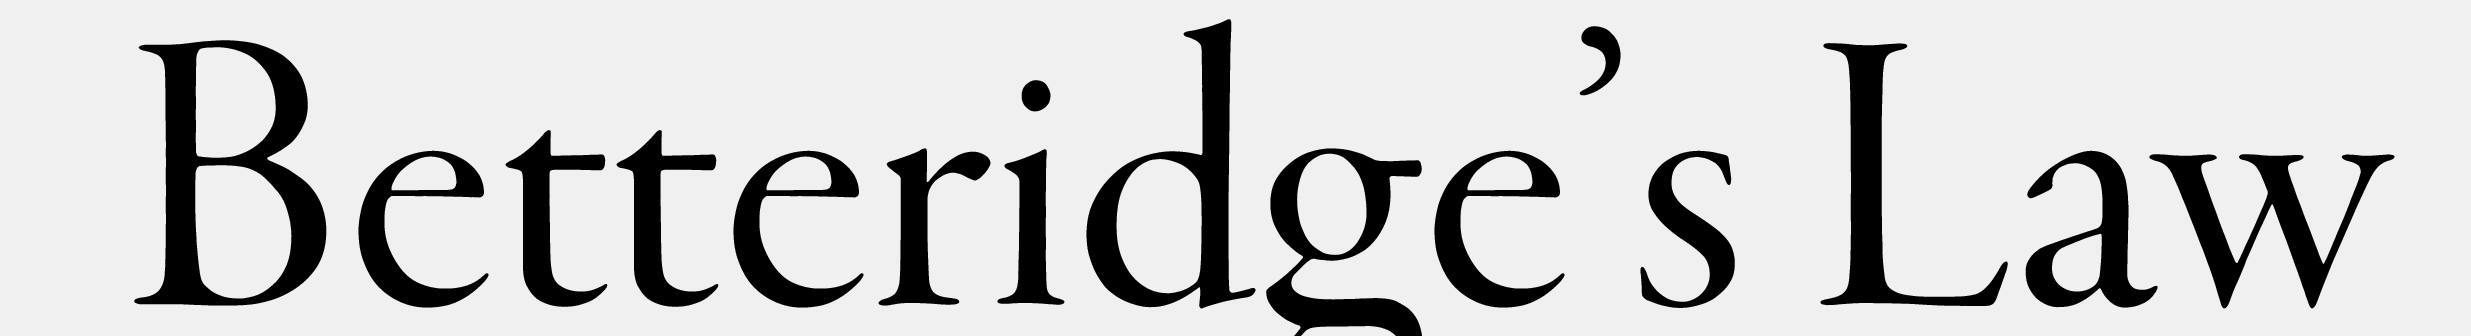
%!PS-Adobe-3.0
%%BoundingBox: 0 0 2471 336
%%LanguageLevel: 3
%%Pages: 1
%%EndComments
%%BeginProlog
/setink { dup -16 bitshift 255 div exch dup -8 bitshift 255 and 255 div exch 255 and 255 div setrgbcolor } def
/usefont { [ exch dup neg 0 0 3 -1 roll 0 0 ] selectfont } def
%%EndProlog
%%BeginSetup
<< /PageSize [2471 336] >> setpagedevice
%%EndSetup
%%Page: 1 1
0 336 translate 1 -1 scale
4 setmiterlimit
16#F0F0F0 setink
0 0 2471 336 rectfill
/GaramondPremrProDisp-Regular 413 usefont
16#000000 setink
124 303 moveto (Betteridge’s Law) show
showpage
%%EOF
